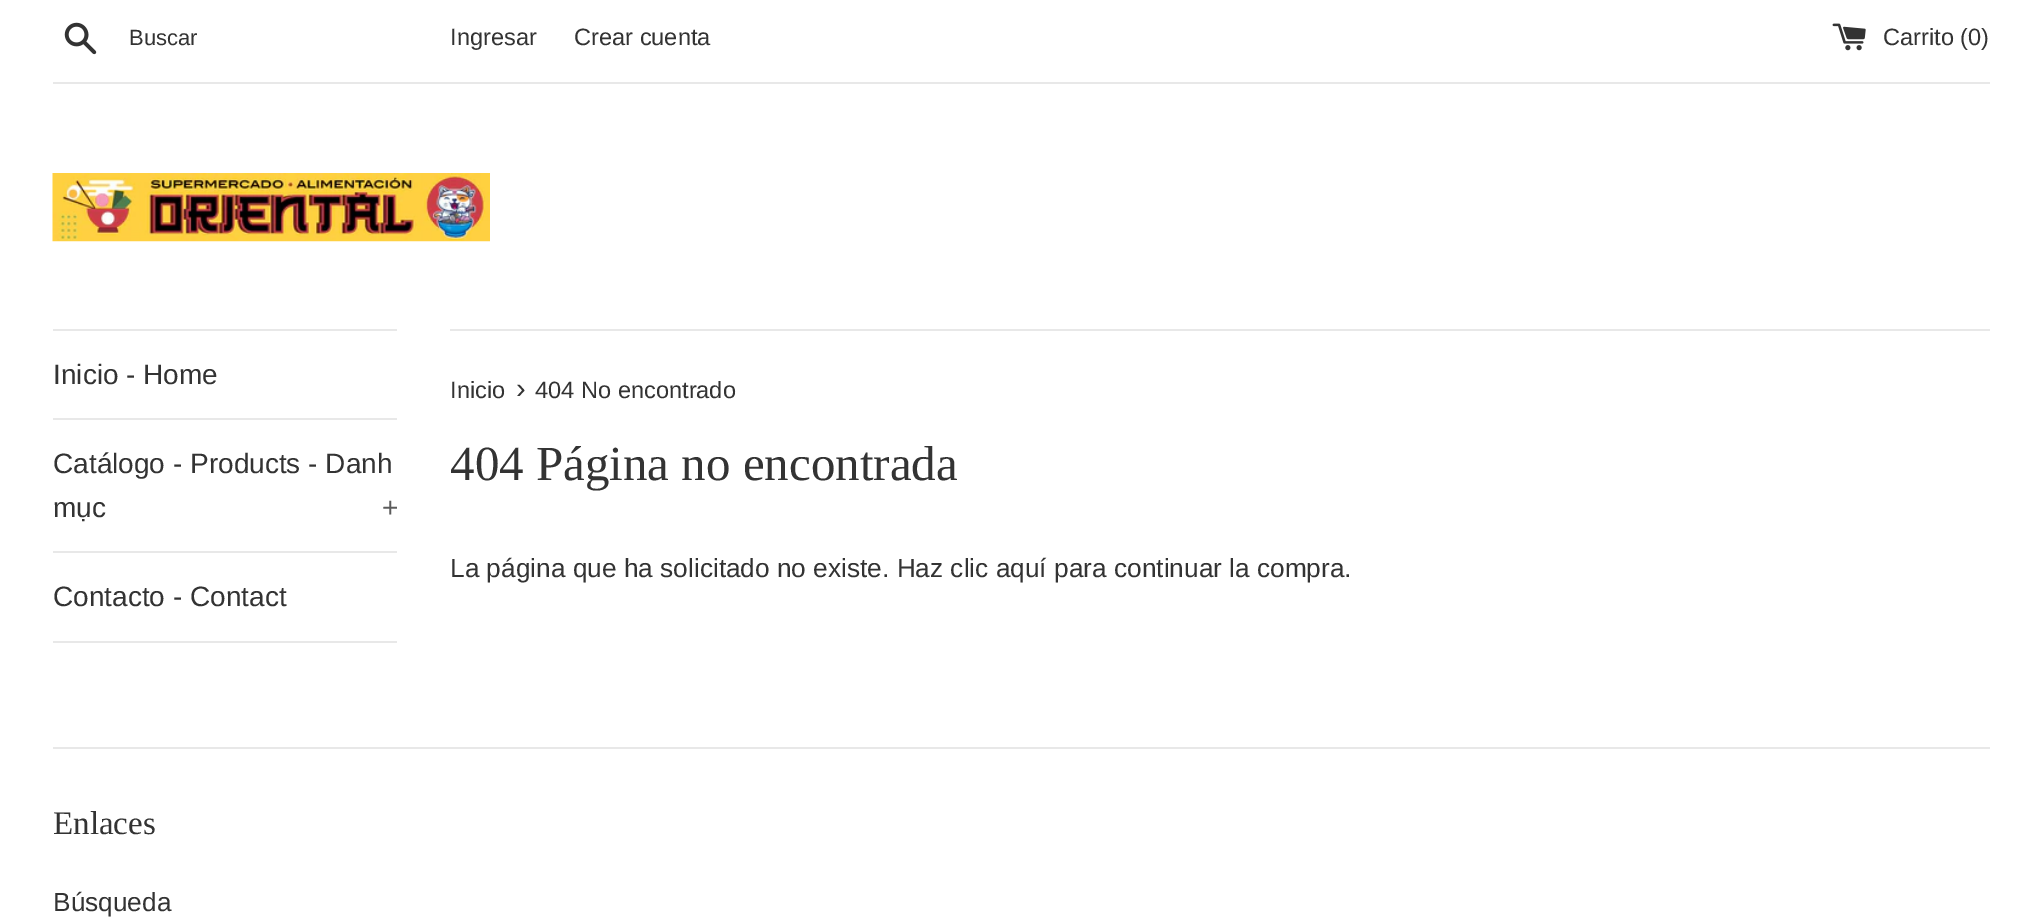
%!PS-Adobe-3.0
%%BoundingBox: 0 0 2041 924
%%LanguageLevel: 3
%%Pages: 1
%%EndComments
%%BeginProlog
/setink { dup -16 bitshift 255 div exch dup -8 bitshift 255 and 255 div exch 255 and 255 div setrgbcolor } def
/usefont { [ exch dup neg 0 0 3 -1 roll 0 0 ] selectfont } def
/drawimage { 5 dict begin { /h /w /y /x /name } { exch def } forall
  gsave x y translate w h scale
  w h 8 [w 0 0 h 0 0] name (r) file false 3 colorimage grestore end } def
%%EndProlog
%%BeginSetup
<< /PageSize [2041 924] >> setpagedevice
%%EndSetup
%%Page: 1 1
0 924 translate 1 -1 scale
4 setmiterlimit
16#FFFFFF setink
0 0 2041 924 rectfill
(img1.raw) 64 22 33 33 drawimage
/LiberationSans-Regular 22 usefont
16#333333 setink
129 45 moveto (Buscar) show
/LiberationSans-Regular 23.6 usefont
450 45 moveto (Ingresar) show
574 45 moveto (Crear cuenta) show
(img2.raw) 1832 23 34 28 drawimage
1883 45 moveto (Carrito \(0\)) show
16#E8E8E8 setink
53 82 1937 2 rectfill
(img3.raw) 52 173 438 69 drawimage
53 329 344 2 rectfill
53 418 344 2 rectfill
/LiberationSans-Regular 28 usefont
16#333333 setink
53 384 moveto (Inicio - Home) show
16#E8E8E8 setink
53 551 344 2 rectfill
16#333333 setink
53 473 moveto (Catálogo - Products - Danh) show
53 517 moveto (mục) show
16#5C5C5C setink
382 517 moveto (+) show
16#E8E8E8 setink
53 641 344 2 rectfill
16#333333 setink
53 606 moveto (Contacto - Contact) show
16#E8E8E8 setink
450 329 1540 2 rectfill
/LiberationSans-Regular 23.6 usefont
16#333333 setink
450 398 moveto (Inicio) show
/LiberationSans-Regular 29 usefont
516 398 moveto (›) show
/LiberationSans-Regular 23.6 usefont
535 398 moveto (404 No encontrado) show
/LiberationSerif-Regular 49 usefont
450 480 moveto (404 Página no encontrada) show
/LiberationSans-Regular 26.25 usefont
450 577 moveto (La página que ha solicitado no existe. Haz clic aquí para continuar la compra.) show
16#E8E8E8 setink
53 747 1937 2 rectfill
/LiberationSerif-Regular 33 usefont
16#333333 setink
53 834 moveto (Enlaces) show
/LiberationSans-Regular 26.25 usefont
53 911 moveto (Búsqueda) show
showpage
%%EOF
